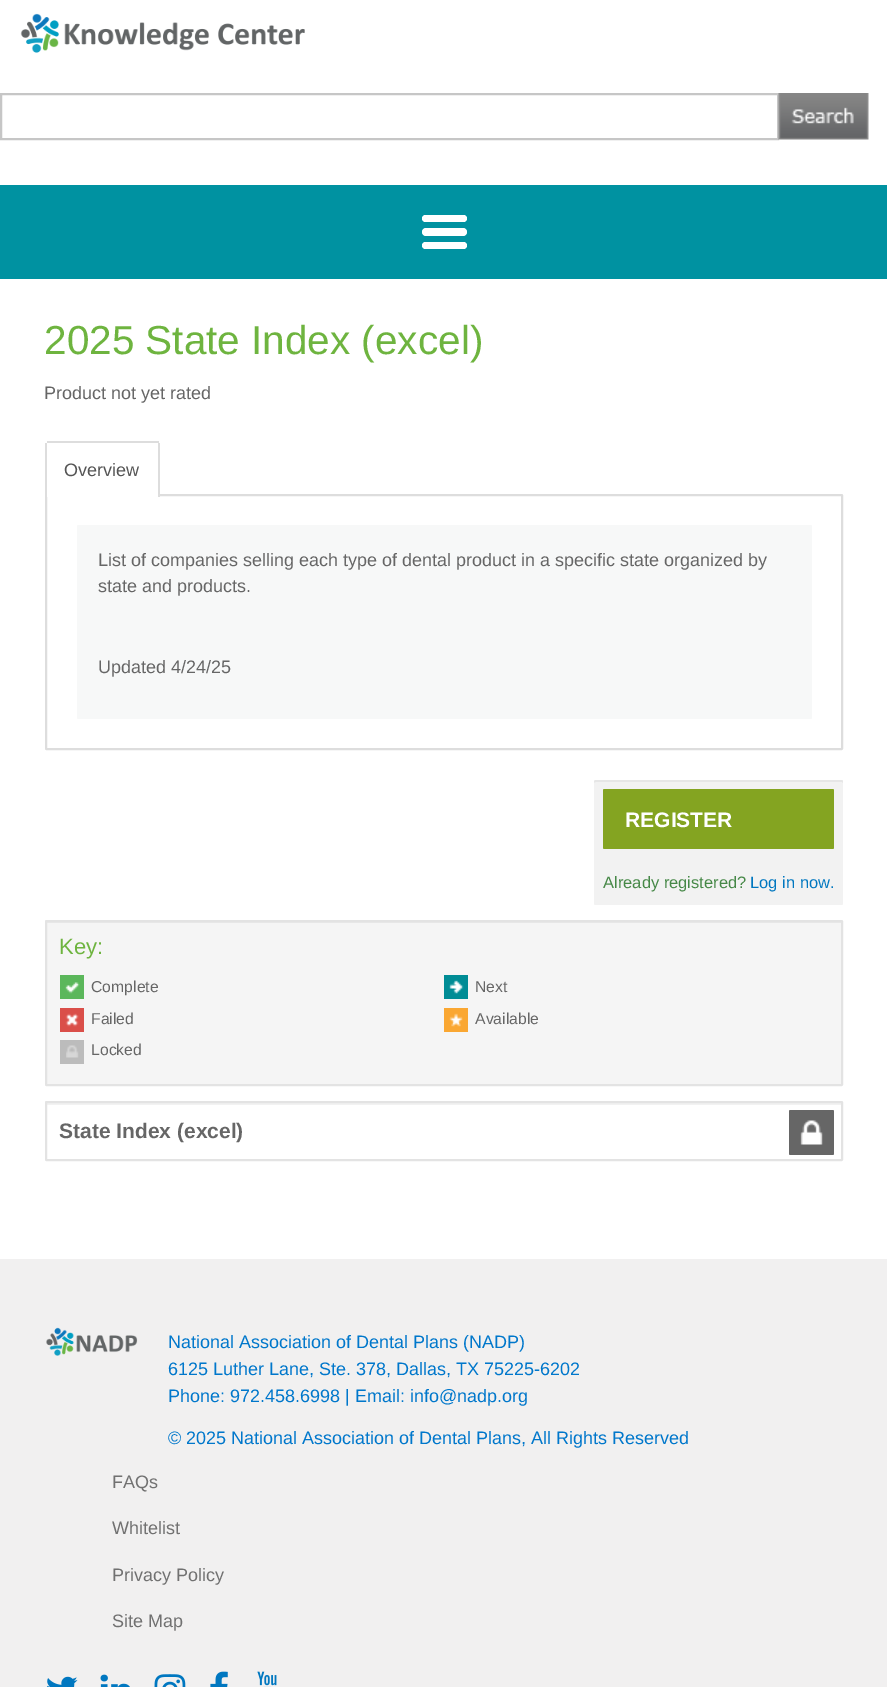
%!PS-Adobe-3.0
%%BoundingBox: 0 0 887 1687
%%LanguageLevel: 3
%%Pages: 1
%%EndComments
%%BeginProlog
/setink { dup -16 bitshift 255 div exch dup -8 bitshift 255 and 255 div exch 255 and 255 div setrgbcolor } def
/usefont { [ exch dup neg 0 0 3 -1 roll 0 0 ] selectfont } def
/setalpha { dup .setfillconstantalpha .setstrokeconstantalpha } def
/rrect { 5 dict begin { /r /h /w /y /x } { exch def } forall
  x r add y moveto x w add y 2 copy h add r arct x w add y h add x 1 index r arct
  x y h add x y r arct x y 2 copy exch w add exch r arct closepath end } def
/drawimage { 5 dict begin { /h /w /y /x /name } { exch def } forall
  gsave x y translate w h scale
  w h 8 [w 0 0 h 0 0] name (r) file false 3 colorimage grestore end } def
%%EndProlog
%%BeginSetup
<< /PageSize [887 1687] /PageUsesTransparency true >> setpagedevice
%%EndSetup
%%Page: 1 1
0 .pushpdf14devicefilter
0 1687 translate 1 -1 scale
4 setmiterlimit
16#FFFFFF setink
0 0 887 1687 rectfill
(img1.raw) 20 13 285 40 drawimage
16#C6C6C6 setink
2 setlinewidth
1 94 777 45 rectstroke
(img2.raw) 778 93 91 47 drawimage
16#0092A1 setink
0 185 887 94 rectfill
16#FFFFFF setink
422 215 45 7 3.5 rrect fill
422 228 45 8 4 rrect fill
422 242 45 7 3.5 rrect fill
/LiberationSans-Regular 40.5 usefont
16#6EB43F setink
44 354 moveto (2025 State Index \(excel\)) show
/LiberationSans-Regular 18 usefont
16#666666 setink
44 399 moveto (Product not yet rated) show
16#DDDDDD setink
46 495 796 254 0.5 rrect stroke
16#FFFFFF setink
46.5 441 moveto 157.5 441 lineto 158.5 441 159 441.5 159 442.5 curveto 159 497 lineto 45 497 lineto 45 442.5 lineto 45 441.5 45.5 441 46.5 441 curveto closepath fill
[
    [47 441 112 2 16#DDDDDD]
    [158 443 2 54 16#DDDDDD]
    [45 443 2 54 16#DDDDDD]
] { aload pop setink rectfill } forall
16#555555 setink
64 476 moveto (Overview) show
16#F7F8F8 setink
77 525 735 194 1.5 rrect fill
16#666666 setink
[
    [(List of companies selling each type of dental product in a specific state organized by) 98 566]
    [(state and products.) 98 592]
    [(Updated 4/24/25) 98 673]
] { aload pop moveto show } forall
16#F2F2F2 setink
594 780 249 125 1.5 rrect fill
0.05 setalpha
16#000000 setink
596 782 moveto 842 782 lineto 843 783 lineto 843 782 843 780 842 780 curveto 596 780 lineto 594 780 594 782 594 783 curveto 594 782 595 782 596 782 curveto closepath fill
1 setalpha
16#84A421 setink
603 789 231 60 1.5 rrect fill
/LiberationSans-Bold 21 usefont
16#FFFFFF setink
625 827 moveto (REGISTER) show
/LiberationSans-Regular 16.5 usefont
16#468847 setink
603 888 moveto (Already registered?) show
16#0077C0 setink
750 888 moveto (Log in now.) show
16#F5F5F5 setink
47 923 794 161 rectfill
16#E9E9E9 setink
47 922 795 1 rectfill
16#E3E3E3 setink
46 921 796 164 0.5 rrect stroke
/LiberationSans-Regular 22 usefont
16#6EB43F setink
59 954 moveto (Key:) show
16#5BB75B setink
60 975 24 24 rectfill
/LiberationSans-Regular 15.75 usefont
16#666666 setink
91 992 moveto (Complete) show
(img3.raw) 65 982 15 12 drawimage
16#008C95 setink
444 975 24 24 rectfill
(img4.raw) 449 980 15 14 drawimage
16#666666 setink
475 992 moveto (Next) show
16#DA4F49 setink
60 1008 24 24 rectfill
16#666666 setink
91 1024 moveto (Failed) show
(img5.raw) 65 1013 14 14 drawimage
16#FAA732 setink
444 1008 24 24 rectfill
16#666666 setink
475 1024 moveto (Available) show
(img6.raw) 449 1013 14 14 drawimage
16#BCBCBC setink
60 1040 24 24 rectfill
16#666666 setink
91 1055 moveto (Locked) show
(img7.raw) 66 1045 13 13 drawimage
16#F2F2F2 setink
47 1103 795 2 rectfill
16#E3E3E3 setink
46 1102 796 58 0.5 rrect stroke
/LiberationSans-Bold 21 usefont
16#666666 setink
59 1138 moveto (State Index \(excel\)) show
789 1110 45 45 1.5 rrect fill
(img8.raw) 800 1120 23 25 drawimage
16#F1F0F0 setink
0 1259 887 428 rectfill
(img9.raw) 46 1327 92 29 drawimage
/LiberationSans-Regular 18 usefont
16#0077CB setink
[
    [(National Association of Dental Plans \(NADP\)) 168 1348]
    [(6125 Luther Lane, Ste. 378, Dallas, TX 75225-6202) 168 1375]
    [(Phone: 972.458.6998 | Email: info@nadp.org) 168 1402]
    [(© 2025 National Association of Dental Plans, All Rights Reserved) 168 1444]
] { aload pop moveto show } forall
16#717171 setink
[
    [(FAQs) 112 1488]
    [(Whitelist) 112 1534]
    [(Privacy Policy) 112 1581]
    [(Site Map) 112 1627]
] { aload pop moveto show } forall
(img10.raw) 47 1676 31 11 drawimage
(img11.raw) 100 1674 30 13 drawimage
(img12.raw) 154 1674 32 13 drawimage
(img13.raw) 210 1671 18 16 drawimage
(img14.raw) 257 1671 20 16 drawimage
.poppdf14devicefilter showpage
%%EOF
